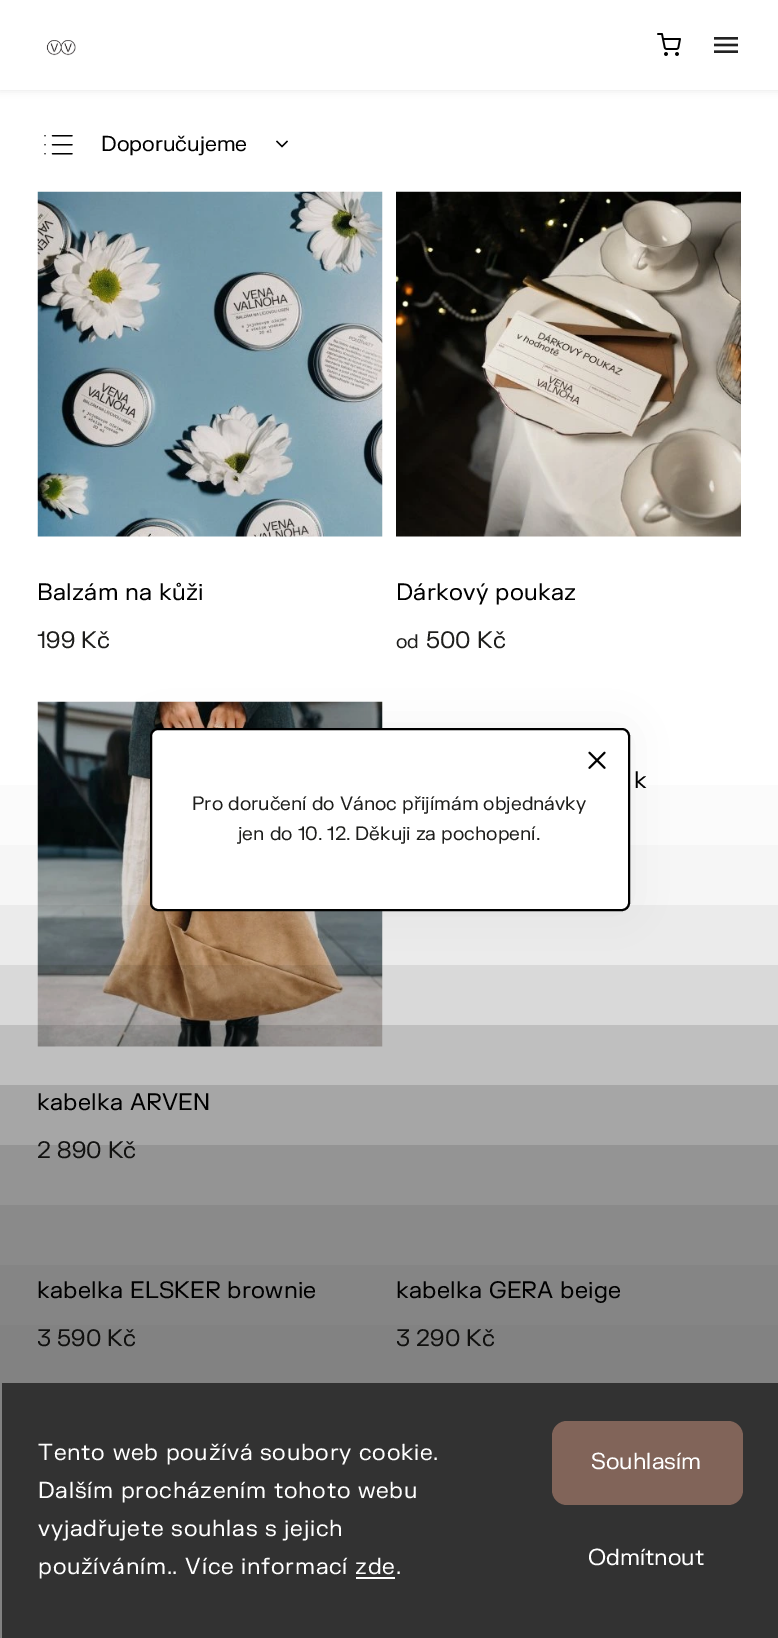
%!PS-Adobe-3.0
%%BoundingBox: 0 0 778 1638
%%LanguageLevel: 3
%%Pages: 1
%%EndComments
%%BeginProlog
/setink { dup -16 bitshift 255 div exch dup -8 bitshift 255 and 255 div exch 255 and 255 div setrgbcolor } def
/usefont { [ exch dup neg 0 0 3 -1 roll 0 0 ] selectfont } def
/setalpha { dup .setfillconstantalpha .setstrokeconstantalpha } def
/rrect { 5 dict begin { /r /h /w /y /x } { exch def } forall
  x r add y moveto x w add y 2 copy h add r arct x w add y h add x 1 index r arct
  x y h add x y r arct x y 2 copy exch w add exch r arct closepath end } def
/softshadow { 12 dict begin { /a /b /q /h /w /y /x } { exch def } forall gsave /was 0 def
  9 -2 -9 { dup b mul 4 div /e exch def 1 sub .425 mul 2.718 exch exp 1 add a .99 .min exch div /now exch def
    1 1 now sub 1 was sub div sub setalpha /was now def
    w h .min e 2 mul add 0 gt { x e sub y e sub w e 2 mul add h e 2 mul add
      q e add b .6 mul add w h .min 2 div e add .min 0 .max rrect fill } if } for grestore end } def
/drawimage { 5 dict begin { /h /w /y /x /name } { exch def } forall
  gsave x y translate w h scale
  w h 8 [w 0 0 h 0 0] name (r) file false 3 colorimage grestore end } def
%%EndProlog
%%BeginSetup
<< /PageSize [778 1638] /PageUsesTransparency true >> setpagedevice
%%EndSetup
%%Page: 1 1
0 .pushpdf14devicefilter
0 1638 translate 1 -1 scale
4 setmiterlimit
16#FFFFFF setink
0 0 778 1638 rectfill
16#000000 setink
0 0 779 90 0 4 0.1 softshadow
16#FFFFFF setink
0 0 778 90 rectfill
(img1.raw) 46 40 30 16 drawimage
(img2.raw) 657 33 24 23 drawimage
(img3.raw) 714 37 24 16 drawimage
(img4.raw) 44 135 29 20 drawimage
/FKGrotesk-Regular 21 usefont
16#000000 setink
101 151 moveto (Doporučujeme) show
(img5.raw) 276 140 12 8 drawimage
(img6.raw) 37 191 346 346 drawimage
/FKGrotesk-Regular 23.1 usefont
37 600 moveto 0.3 0 (Balzám na kůži) ashow
16#1E1E1C setink
37 648 moveto (199 Kč) show
(img7.raw) 396 191 345 346 drawimage
16#000000 setink
396 600 moveto 0.3 0 (Dárkový poukaz) ashow
/FKGrotesk-Regular 19 usefont
16#1E1E1C setink
396 648 moveto (od) show
/FKGrotesk-Regular 23.1 usefont
426 648 moveto (500 Kč) show
16#000000 setink
634 788 moveto 0.3 0 (k) ashow
(img8.raw) 37 701 346 346 drawimage
37 1110 moveto 0.3 0 (kabelka ARVEN) ashow
16#1E1E1C setink
37 1158 moveto (2 890 Kč) show
16#000000 setink
37 1298 moveto 0.3 0 (kabelka ELSKER brownie) ashow
16#1E1E1C setink
37 1346 moveto (3 590 Kč) show
16#000000 setink
396 1298 moveto 0.3 0 (kabelka GERA beige) ashow
16#1E1E1C setink
396 1346 moveto (3 290 Kč) show
16#000000 setink
150 728 480 183 8 22.5 0.05 softshadow
gsave
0 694 moveto 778 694 lineto 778 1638 lineto 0 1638 lineto closepath 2 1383 moveto 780 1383 lineto 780 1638 lineto 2 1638 lineto closepath eoclip newpath
-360 1055 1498 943 0 120 0.5 softshadow
grestore
16#FFFFFF setink
151 729 478 181 7 rrect gsave fill grestore
16#000000 setink
2 setlinewidth
stroke
(img9.raw) 588 751 18 18 drawimage
/FKGrotesk-Regular 18.9 usefont
16#1E1E1C setink
192 810 moveto (Pro doručení do Vánoc přijímám objednávky) show
238 840 moveto (jen do 10. 12. Děkuji za pochopení.) show
16#323232 setink
2 1383 776 255 rectfill
/FKGrotesk-Regular 22.5 usefont
16#FFFFFF setink
38 1460 moveto 0.75 0 (Tento web používá soubory cookie.) ashow
38 1498 moveto 0.75 0 (Dalším procházením tohoto webu) ashow
38 1536 moveto 0.75 0 (vyjadřujete souhlas s jejich) ashow
38 1574 moveto 0.75 0 (používáním.. Více informací zde.) ashow
356 1577 39 2 rectfill
16#816459 setink
552 1421 191 84 15 rrect fill
16#FFFFFF setink
591 1469 moveto (Souhlasím) show
588 1565 moveto (Odmítnout) show
.poppdf14devicefilter showpage
%%EOF
